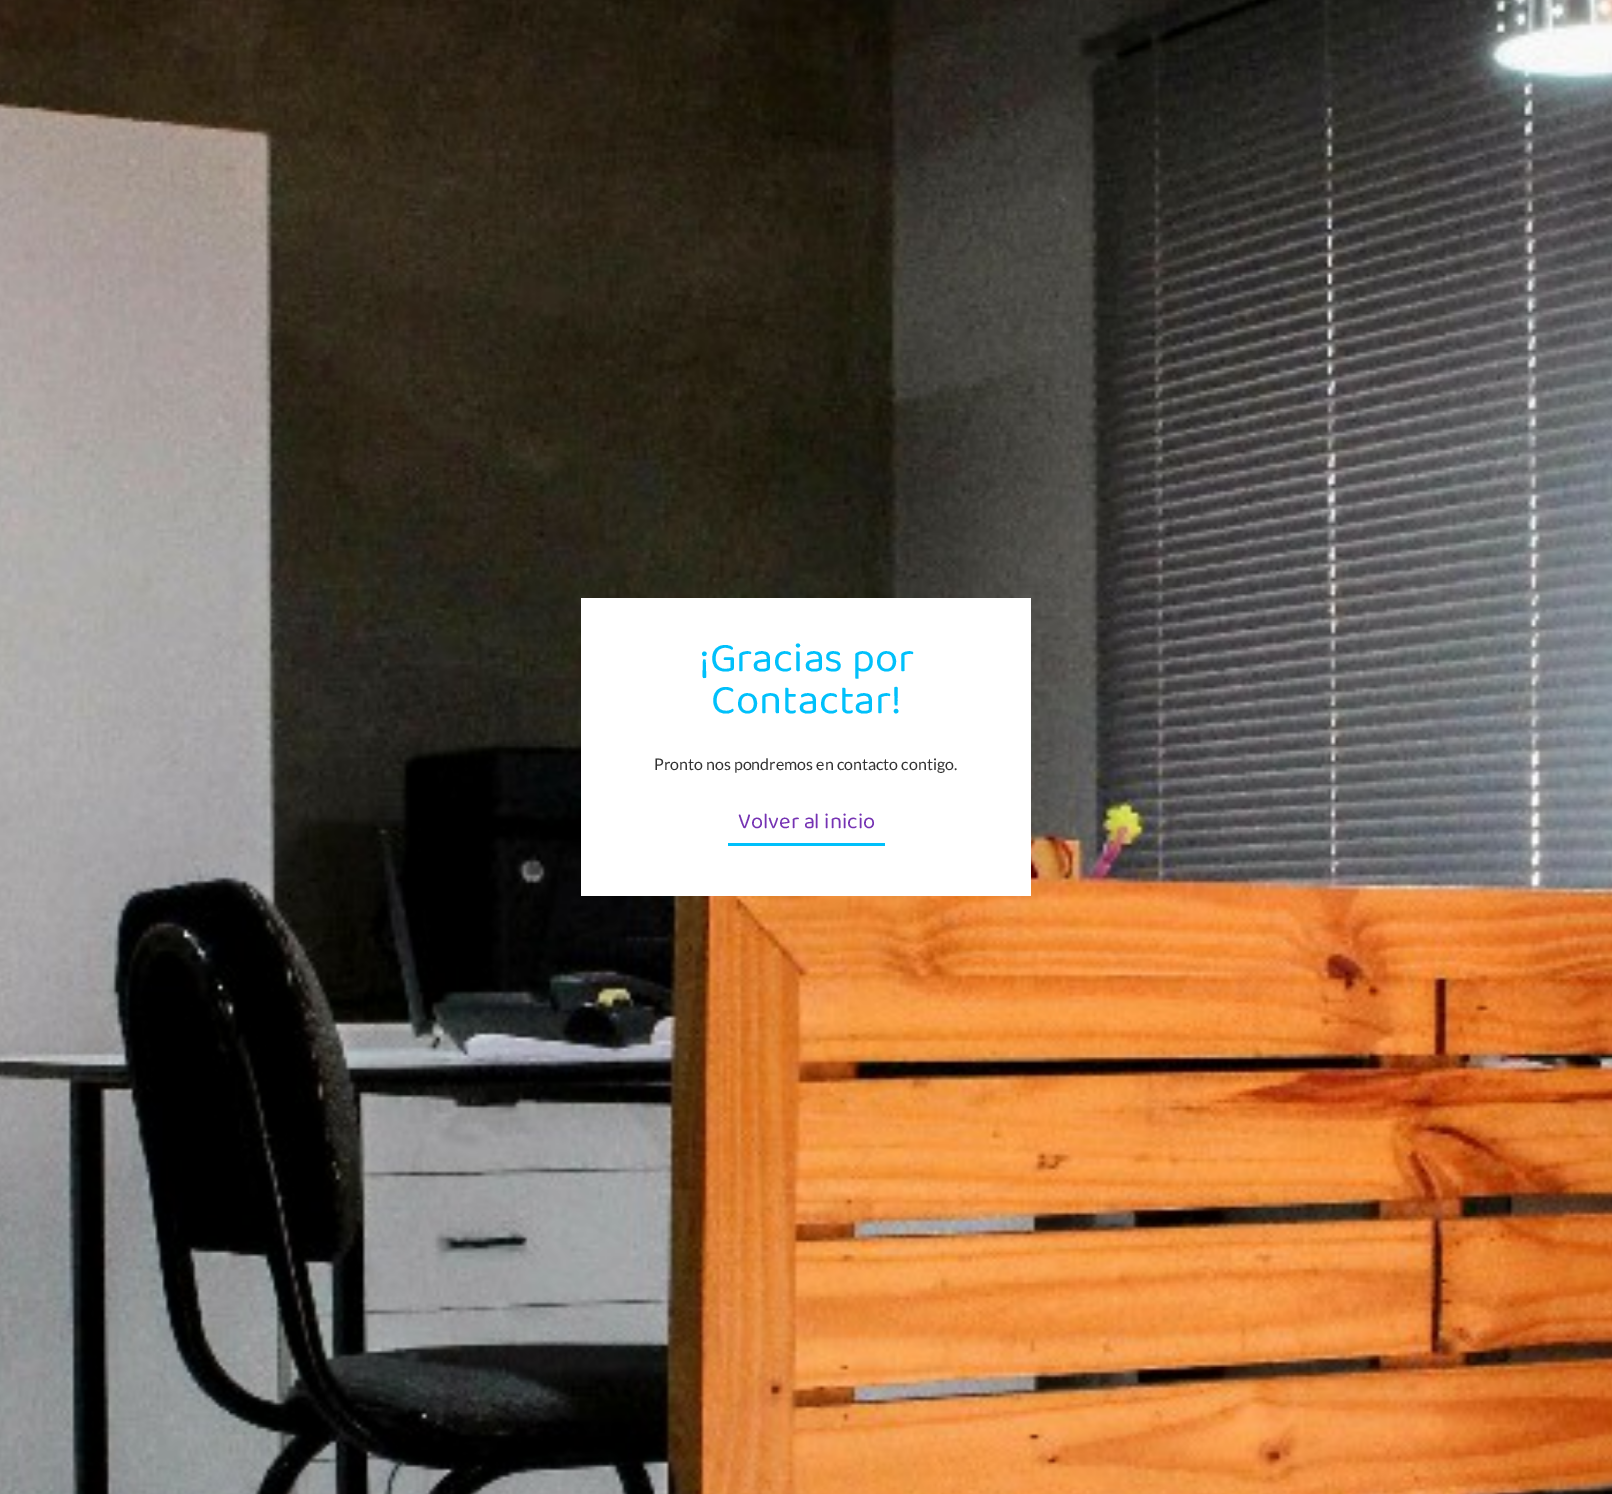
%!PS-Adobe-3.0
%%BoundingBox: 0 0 1612 1494
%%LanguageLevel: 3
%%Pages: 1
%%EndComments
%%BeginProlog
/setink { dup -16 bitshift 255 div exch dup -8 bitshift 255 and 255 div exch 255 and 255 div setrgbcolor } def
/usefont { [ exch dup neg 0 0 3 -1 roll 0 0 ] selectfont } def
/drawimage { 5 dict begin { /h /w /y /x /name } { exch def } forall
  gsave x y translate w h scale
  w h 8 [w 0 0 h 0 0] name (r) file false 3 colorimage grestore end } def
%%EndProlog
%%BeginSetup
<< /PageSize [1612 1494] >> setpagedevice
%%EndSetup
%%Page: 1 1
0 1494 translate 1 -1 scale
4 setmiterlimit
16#FFFFFF setink
0 0 1612 1494 rectfill
(img1.raw) 0 0 1612 1494 drawimage
581 598 450 298 rectfill
/BalooTammudu2-Regular 42 usefont
16#00C0FB setink
699 671 moveto (¡Gracias por) show
711 713 moveto (Contactar!) show
/Lato-Regular 16 usefont
16#333333 setink
654 770 moveto (Pronto nos pondremos en contacto contigo.) show
16#00C0FB setink
728 843 157 3 rectfill
/BalooTammudu2-Regular 22 usefont
16#7532B3 setink
738 828 moveto (Volver al inicio) show
showpage
%%EOF
